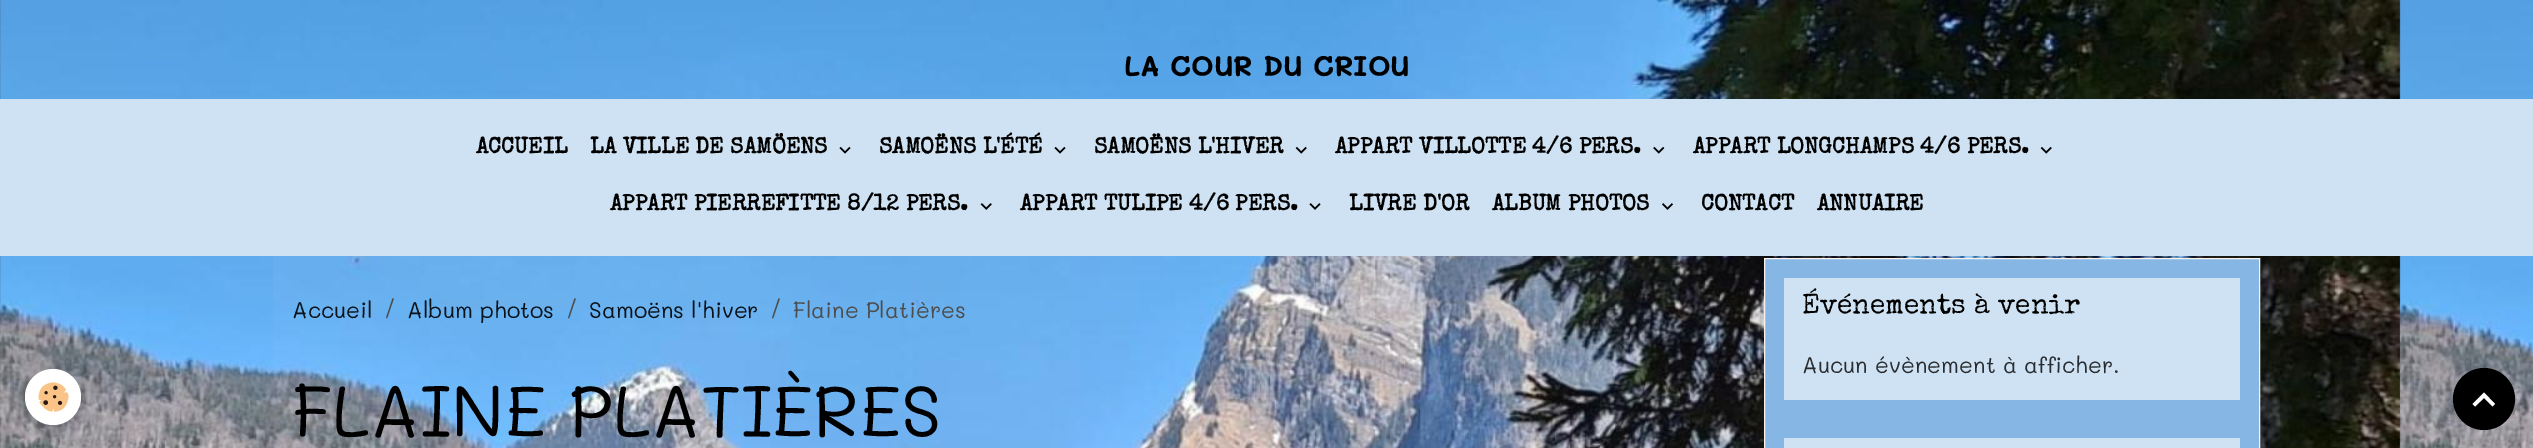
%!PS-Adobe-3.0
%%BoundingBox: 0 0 2533 448
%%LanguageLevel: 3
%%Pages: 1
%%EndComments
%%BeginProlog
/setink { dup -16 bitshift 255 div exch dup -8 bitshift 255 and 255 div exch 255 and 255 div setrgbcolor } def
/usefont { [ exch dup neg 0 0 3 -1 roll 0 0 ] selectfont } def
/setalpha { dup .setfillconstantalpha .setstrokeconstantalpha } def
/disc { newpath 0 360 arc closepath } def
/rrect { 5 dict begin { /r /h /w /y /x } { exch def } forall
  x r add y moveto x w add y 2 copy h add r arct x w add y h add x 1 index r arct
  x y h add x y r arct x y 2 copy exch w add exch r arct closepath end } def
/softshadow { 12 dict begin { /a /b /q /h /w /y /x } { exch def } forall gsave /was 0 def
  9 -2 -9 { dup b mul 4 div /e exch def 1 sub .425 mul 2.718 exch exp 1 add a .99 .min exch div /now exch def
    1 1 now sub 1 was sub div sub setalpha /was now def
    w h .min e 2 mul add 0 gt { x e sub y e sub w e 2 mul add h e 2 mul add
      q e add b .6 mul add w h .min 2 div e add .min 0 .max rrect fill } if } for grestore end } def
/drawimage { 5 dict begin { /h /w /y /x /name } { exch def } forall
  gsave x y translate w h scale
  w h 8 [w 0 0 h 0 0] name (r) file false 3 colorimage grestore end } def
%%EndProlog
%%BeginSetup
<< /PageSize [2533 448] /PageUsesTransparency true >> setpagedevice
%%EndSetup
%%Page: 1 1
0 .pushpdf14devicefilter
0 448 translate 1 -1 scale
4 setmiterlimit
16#FFFFFF setink
0 0 2533 448 rectfill
(img1.raw) 0 0 2533 448 drawimage
/Mali-Bold 28.1 usefont
16#000000 setink
1124 76 moveto (LA COUR DU CRIOU) show
16#CFE2F3 setink
0 99 2533 157 rectfill
/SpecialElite-Bold 22.5 usefont
16#000000 setink
476 153 moveto (ACCUEIL) show
590 153 moveto (LA VILLE DE SAMÖENS) show
(img2.raw) 839 146 12 8 drawimage
879 153 moveto (SAMOËNS L'ÉTÉ) show
(img2.raw) 1054 146 12 8 drawimage
1094 153 moveto (SAMOËNS L'HIVER) show
(img3.raw) 1295 146 12 8 drawimage
1335 153 moveto (APPART VILLOTTE 4/6 PERS.) show
(img4.raw) 1653 146 12 8 drawimage
1693 153 moveto (APPART LONGCHAMPS 4/6 PERS.) show
(img3.raw) 2040 146 12 8 drawimage
610 210 moveto (APPART PIERREFITTE 8/12 PERS.) show
(img5.raw) 980 203 12 7 drawimage
1020 210 moveto (APPART TULIPE 4/6 PERS.) show
(img6.raw) 1309 203 12 7 drawimage
1349 210 moveto (LIVRE D'OR) show
1492 210 moveto (ALBUM PHOTOS) show
(img7.raw) 1662 203 11 7 drawimage
1701 210 moveto (CONTACT) show
1817 210 moveto (ANNUAIRE) show
25 373 56 56 28 6 0.24 softshadow
16#FFFFFF setink
53 397 28 disc fill
(img8.raw) 38 382 31 30 drawimage
0.03 setalpha
16#FCE5CD setink
273 256 1988 192 rectfill
/Mali-Regular 22.5 usefont
1 setalpha
16#0B1219 setink
292 318 moveto (Accueil) show
16#4D4D4D setink
384 318 moveto (/) show
16#0B1219 setink
407 318 moveto (Album photos) show
16#4D4D4D setink
566 318 moveto (/) show
16#0B1219 setink
589 318 moveto (Samoëns l'hiver) show
16#4D4D4D setink
770 318 moveto (/) show
793 318 moveto (Flaine Platières) show
/Mali-Regular 72 usefont
16#000000 setink
292 437 moveto (FLAINE PLATIÈRES) show
16#86B7E4 setink
1764.5 258.5 moveto 2259.5 258.5 lineto 2259.5 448.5 lineto 1764.5 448.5 lineto closepath gsave fill grestore
16#FBF1EB setink
stroke
16#CFE2F3 setink
1784 278 456 122 rectfill
/SpecialElite-Regular 28.1 usefont
16#000000 setink
1802 313 moveto (Événements à venir) show
/Mali-Regular 22.5 usefont
16#292D31 setink
1802 373 moveto (Aucun évènement à afficher.) show
16#CFE2F3 setink
1784 438 456 10 rectfill
16#000000 setink
2484 399 31 disc fill
16#FFFFFF setink
2484 392.5 moveto 2495 404 lineto 2492.5 406.5 lineto 2484 398 lineto 2475 406.5 lineto 2472.5 404 lineto closepath fill
.poppdf14devicefilter showpage
%%EOF
